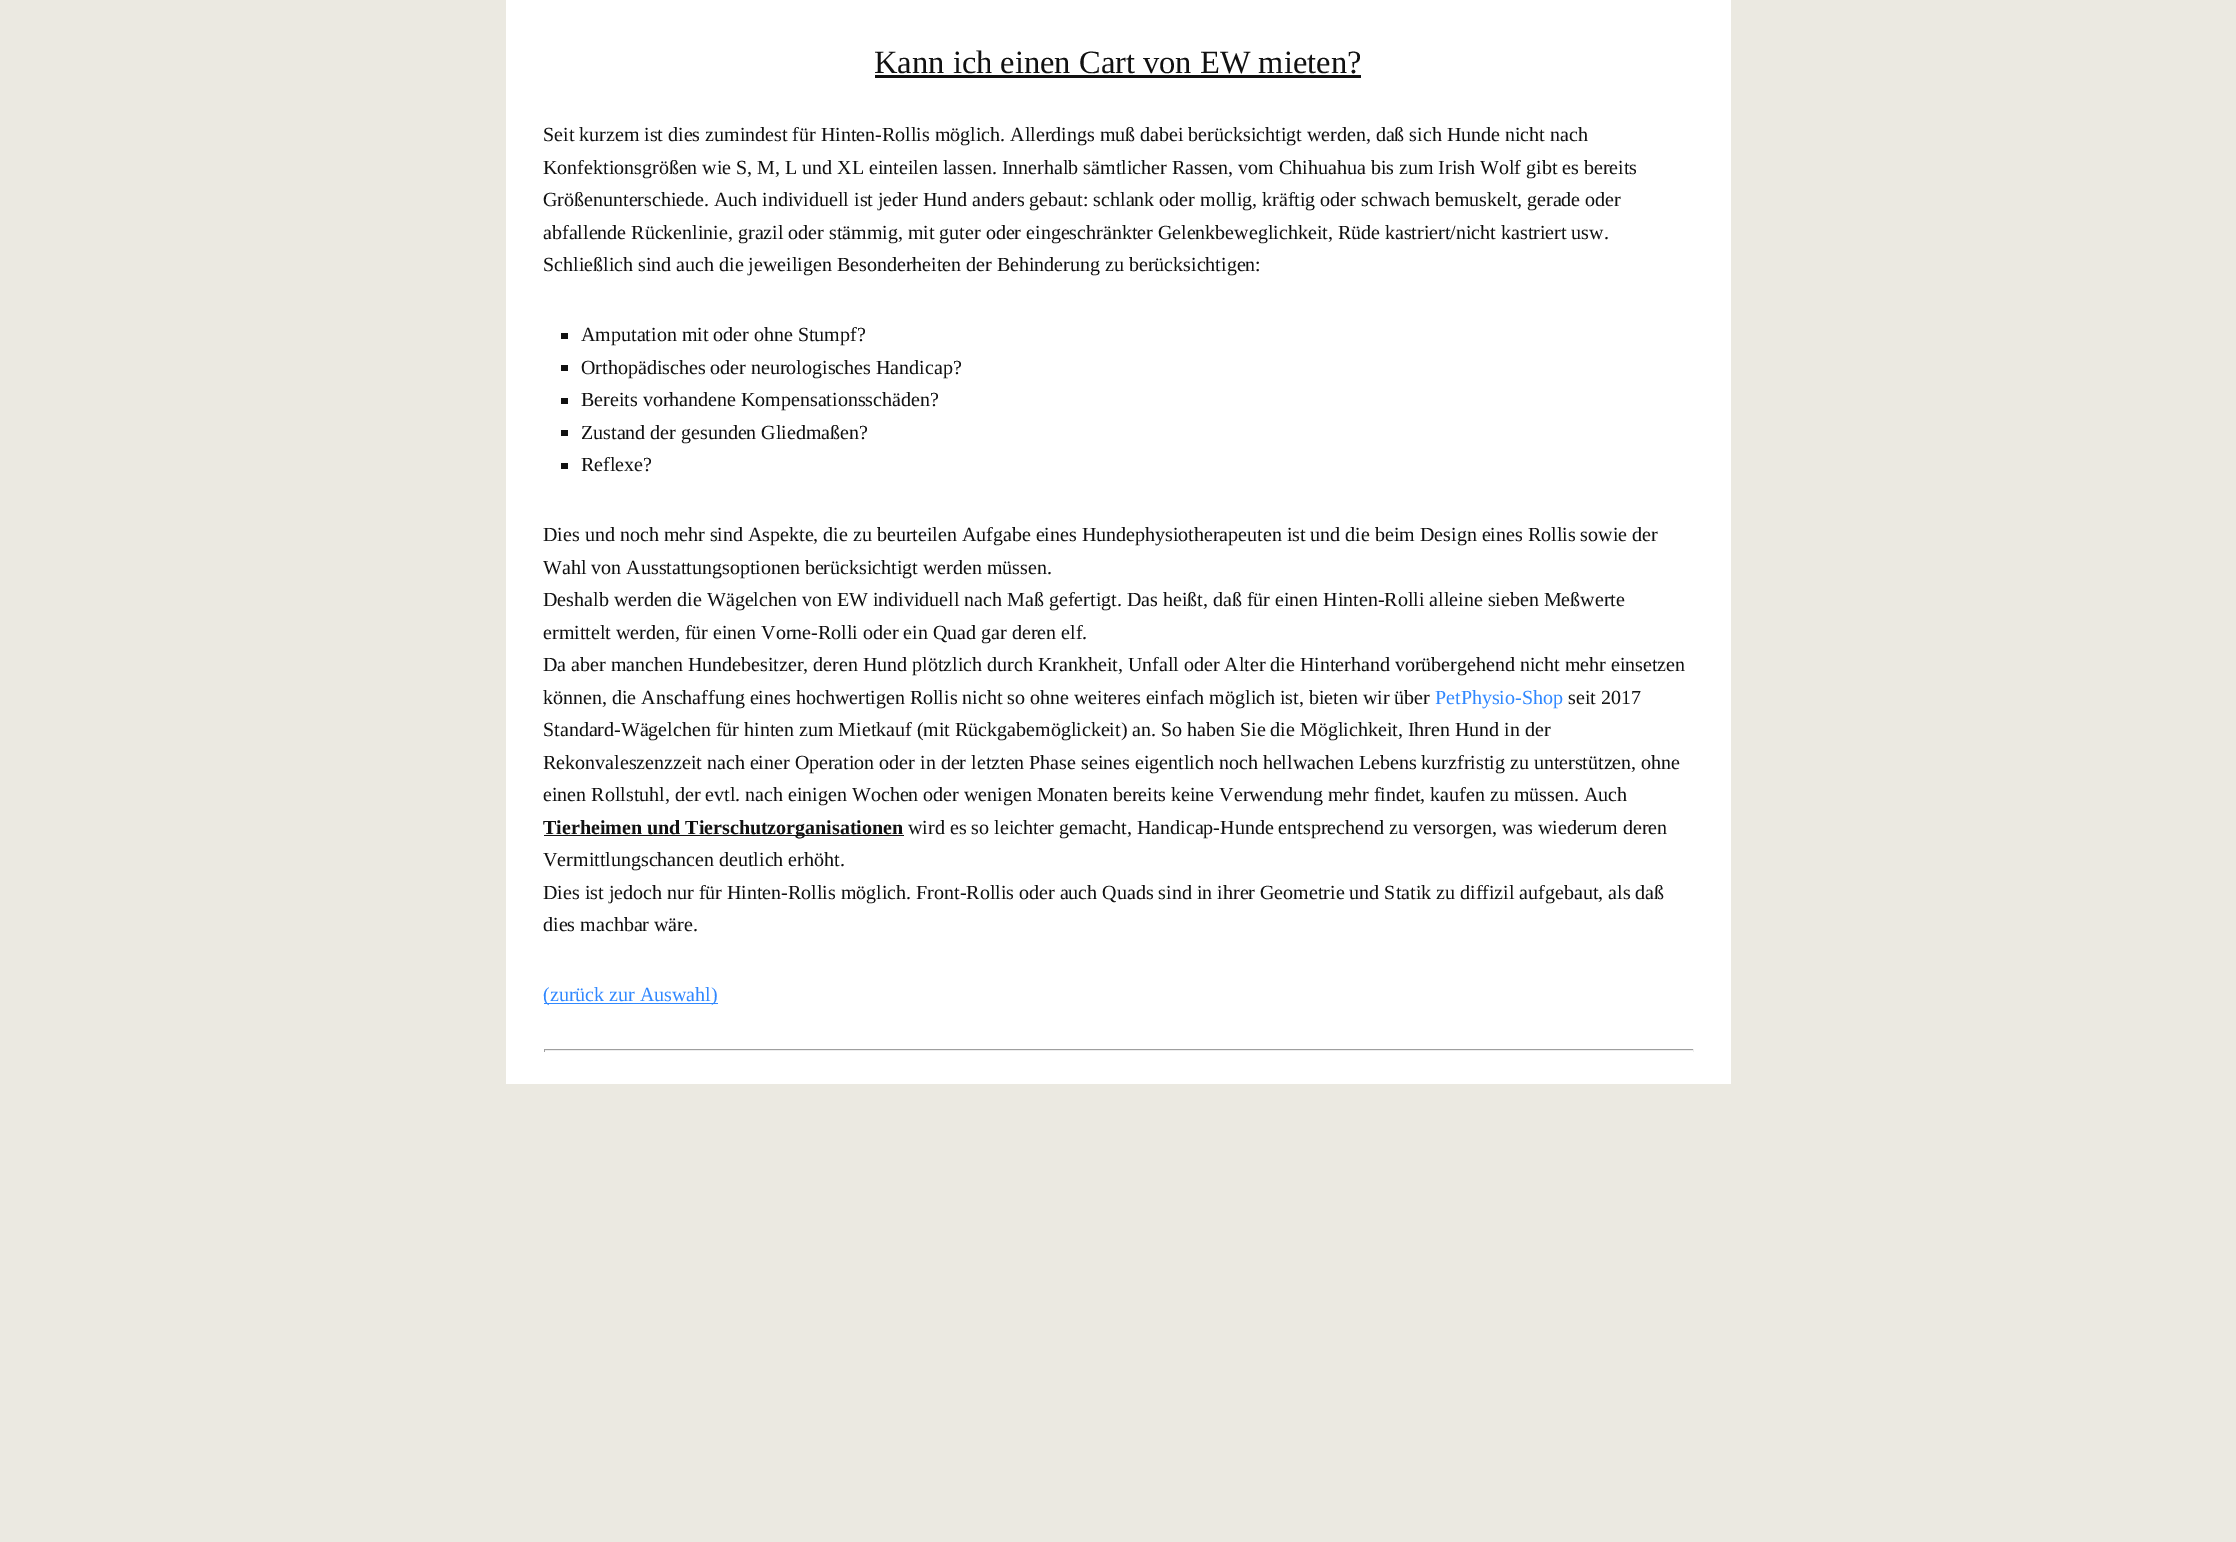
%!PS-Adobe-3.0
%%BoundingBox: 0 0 2236 1542
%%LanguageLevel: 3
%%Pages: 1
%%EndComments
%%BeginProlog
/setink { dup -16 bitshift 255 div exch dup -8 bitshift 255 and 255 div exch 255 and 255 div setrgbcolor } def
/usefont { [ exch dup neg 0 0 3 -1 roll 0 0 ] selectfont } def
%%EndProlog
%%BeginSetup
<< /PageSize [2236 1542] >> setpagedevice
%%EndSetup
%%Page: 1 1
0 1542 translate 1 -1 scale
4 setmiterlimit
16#EBE9E1 setink
0 0 2236 1542 rectfill
16#FFFFFF setink
506 0 1225 1084 rectfill
/LiberationSerif-Regular 32.5 usefont
16#111111 setink
874 73 moveto (Kann ich einen Cart von EW mieten?) show
875 75 486 3 rectfill
/LiberationSerif-Regular 20 usefont
[
    [(Seit kurzem ist dies zumindest für Hinten-Rollis möglich. Allerdings muß dabei berücksichtigt werden, daß sich Hunde nicht nach) 543 141]
    [(Konfektionsgrößen wie S, M, L und XL einteilen lassen. Innerhalb sämtlicher Rassen, vom Chihuahua bis zum Irish Wolf gibt es bereits) 543 174]
    [(Größenunterschiede. Auch individuell ist jeder Hund anders gebaut: schlank oder mollig, kräftig oder schwach bemuskelt, gerade oder) 543 206]
    [(abfallende Rückenlinie, grazil oder stämmig, mit guter oder eingeschränkter Gelenkbeweglichkeit, Rüde kastriert/nicht kastriert usw.) 543 239]
    [(Schließlich sind auch die jeweiligen Besonderheiten der Behinderung zu berücksichtigen:) 543 271]
] { aload pop moveto show } forall
561 333 7 6 rectfill
581 341 moveto (Amputation mit oder ohne Stumpf?) show
561 365 7 6 rectfill
581 374 moveto (Orthopädisches oder neurologisches Handicap?) show
561 398 7 6 rectfill
581 406 moveto (Bereits vorhandene Kompensationsschäden?) show
561 430 7 6 rectfill
581 439 moveto (Zustand der gesunden Gliedmaßen?) show
561 463 7 6 rectfill
[
    [(Reflexe?) 581 471]
    [(Dies und noch mehr sind Aspekte, die zu beurteilen Aufgabe eines Hundephysiotherapeuten ist und die beim Design eines Rollis sowie der) 543 541]
    [(Wahl von Ausstattungsoptionen berücksichtigt werden müssen.) 543 574]
    [(Deshalb werden die Wägelchen von EW individuell nach Maß gefertigt. Das heißt, daß für einen Hinten-Rolli alleine sieben Meßwerte) 543 606]
    [(ermittelt werden, für einen Vorne-Rolli oder ein Quad gar deren elf.) 543 639]
    [(Da aber manchen Hundebesitzer, deren Hund plötzlich durch Krankheit, Unfall oder Alter die Hinterhand vorübergehend nicht mehr einsetzen) 543 671]
    [(können, die Anschaffung eines hochwertigen Rollis nicht so ohne weiteres einfach möglich ist, bieten wir über) 543 704]
] { aload pop moveto show } forall
16#3088FF setink
1435 704 moveto (PetPhysio-Shop) show
16#111111 setink
[
    [(seit 2017) 1568 704]
    [(Standard-Wägelchen für hinten zum Mietkauf \(mit Rückgabemöglickeit\) an. So haben Sie die Möglichkeit, Ihren Hund in der) 543 736]
    [(Rekonvaleszenzzeit nach einer Operation oder in der letzten Phase seines eigentlich noch hellwachen Lebens kurzfristig zu unterstützen, ohne) 543 769]
    [(einen Rollstuhl, der evtl. nach einigen Wochen oder wenigen Monaten bereits keine Verwendung mehr findet, kaufen zu müssen. Auch) 543 801]
] { aload pop moveto show } forall
544 835 360 1 rectfill
/LiberationSerif-Bold 20 usefont
543 834 moveto (Tierheimen und Tierschutzorganisationen) show
/LiberationSerif-Regular 20 usefont
[
    [(wird es so leichter gemacht, Handicap-Hunde entsprechend zu versorgen, was wiederum deren) 908 834]
    [(Vermittlungschancen deutlich erhöht.) 543 866]
    [(Dies ist jedoch nur für Hinten-Rollis möglich. Front-Rollis oder auch Quads sind in ihrer Geometrie und Statik zu diffizil aufgebaut, als daß) 543 899]
    [(dies machbar wäre.) 543 931]
] { aload pop moveto show } forall
16#3088FF setink
544 1003 174 1 rectfill
543 1001 moveto (\(zurück zur Auswahl\)) show
[
    [544 1049 1150 1 16#9F9F9F]
    [1693 1049 1 3 16#EEEEEE]
    [544 1050 1150 1 16#EEEEEE]
    [544 1049 1 3 16#9F9F9F]
] { aload pop setink rectfill } forall
showpage
%%EOF
